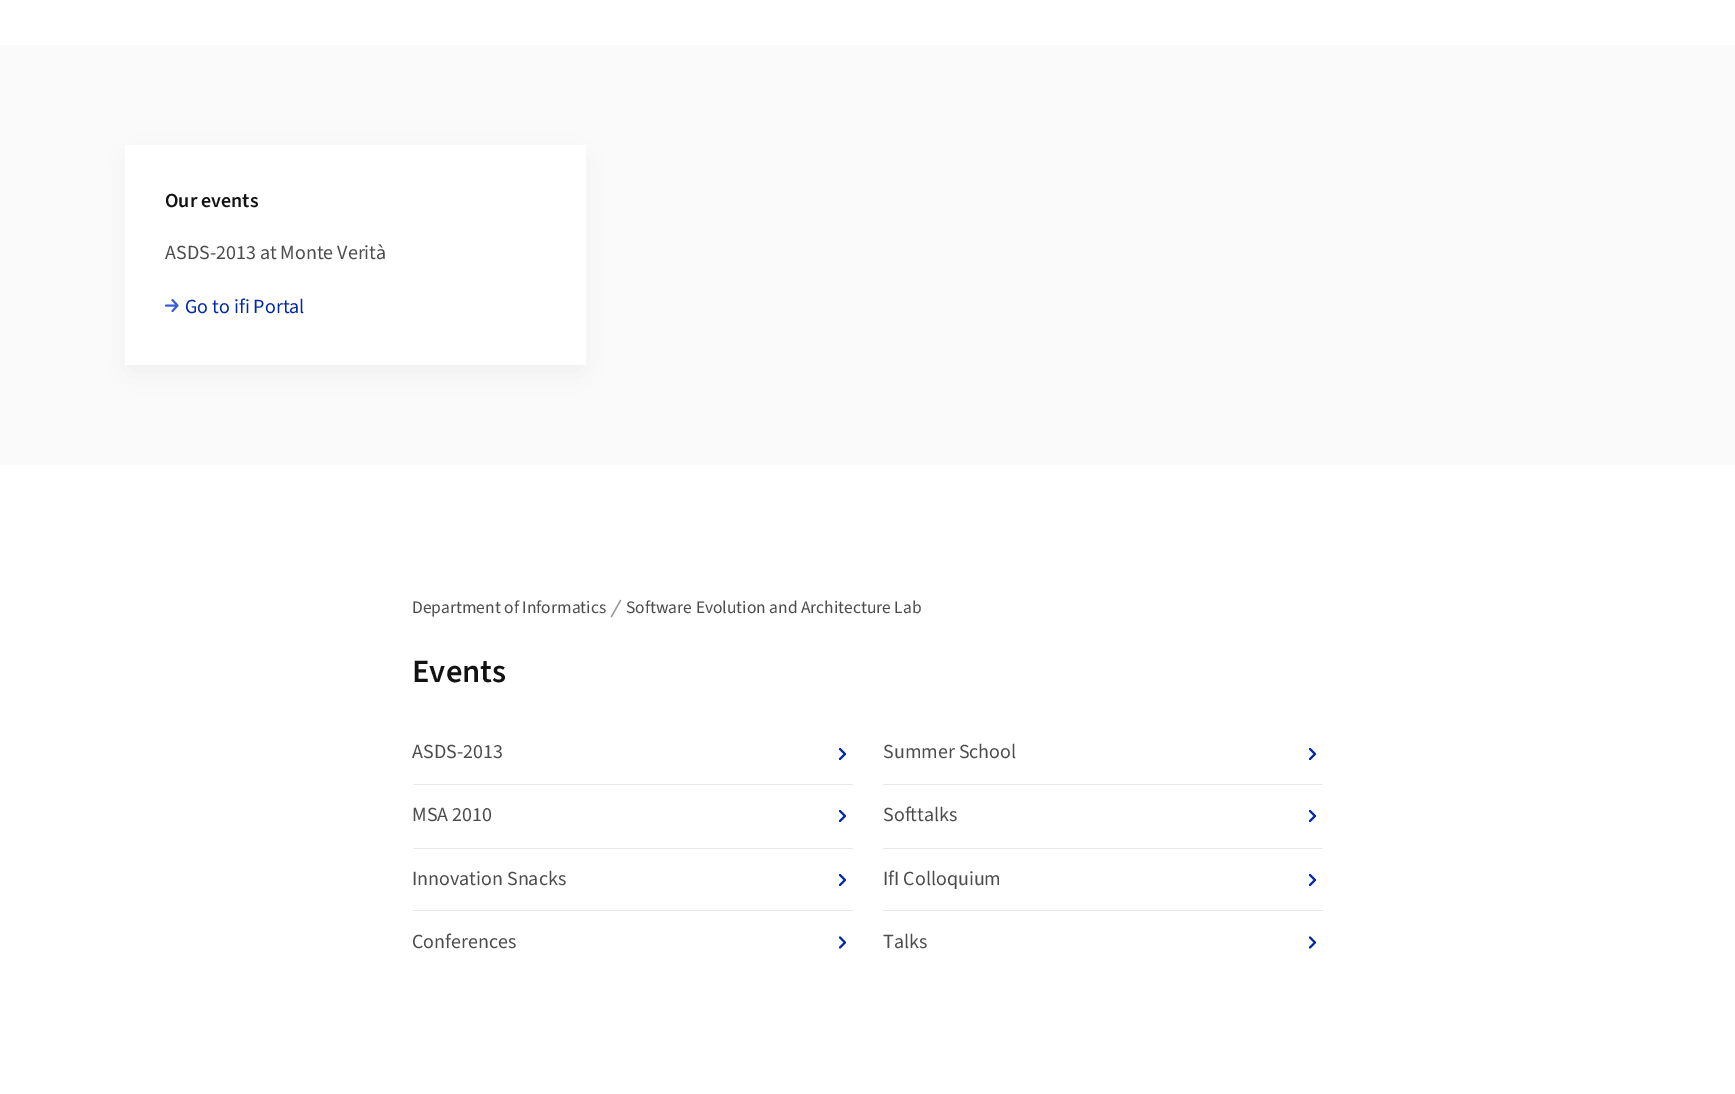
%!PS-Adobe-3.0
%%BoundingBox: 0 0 1735 1094
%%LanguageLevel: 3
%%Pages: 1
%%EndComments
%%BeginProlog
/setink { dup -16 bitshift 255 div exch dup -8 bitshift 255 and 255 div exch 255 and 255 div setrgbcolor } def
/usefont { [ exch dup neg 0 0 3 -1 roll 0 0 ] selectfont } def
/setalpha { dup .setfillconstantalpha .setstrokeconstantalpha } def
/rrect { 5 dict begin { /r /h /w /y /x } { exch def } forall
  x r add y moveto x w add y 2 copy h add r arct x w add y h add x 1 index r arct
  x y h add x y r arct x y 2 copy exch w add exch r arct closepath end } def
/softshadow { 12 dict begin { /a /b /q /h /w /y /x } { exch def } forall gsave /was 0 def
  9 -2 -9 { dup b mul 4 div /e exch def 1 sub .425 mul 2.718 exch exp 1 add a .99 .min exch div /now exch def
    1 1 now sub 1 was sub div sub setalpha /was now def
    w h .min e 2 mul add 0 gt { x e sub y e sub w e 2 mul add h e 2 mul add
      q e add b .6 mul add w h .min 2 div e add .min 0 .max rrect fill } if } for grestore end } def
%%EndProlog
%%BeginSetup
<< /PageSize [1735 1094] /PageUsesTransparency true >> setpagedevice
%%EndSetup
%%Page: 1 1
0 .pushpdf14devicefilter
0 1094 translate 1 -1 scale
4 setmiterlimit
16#FFFFFF setink
0 0 1735 1094 rectfill
16#FAFAFA setink
0 45 1735 420 rectfill
16#000000 setink
130 159 451 210 0 14 0.05 softshadow
16#FFFFFF setink
125 145 461 220 rectfill
/SourceSans3-SemiBold 20 usefont
16#121212 setink
165 207 moveto (Our events) show
/SourceSans3-Regular 20 usefont
16#4C4C4C setink
165 259 moveto (ASDS-2013 at Monte Verità) show
16#365DD5 setink
1.9 setlinewidth
1 setlinecap
1 setlinejoin
172.5 300 moveto 177.5 305.5 lineto 177.5 305.5 moveto 172.5 311 lineto 177.5 305.5 moveto 166 305.5 lineto stroke
16#0028A5 setink
185 313 moveto (Go to ifi Portal) show
/SourceSans3-Regular 17.5 usefont
16#4C4C4C setink
412 613 moveto (Department of Informatics) show
16#949494 setink
1.2 setlinewidth
0 setlinejoin
611.5 616.5 moveto 620.5 600.5 lineto stroke
16#4C4C4C setink
626 613 moveto (Software Evolution and Architecture Lab) show
/SourceSans3-SemiBold 32.5 usefont
16#121212 setink
412 682 moveto (Events) show
/SourceSans3-Regular 20 usefont
16#4C4C4C setink
412 758 moveto (ASDS-2013) show
16#0028A5 setink
1.9 setlinewidth
1 setlinejoin
840 749 moveto 845 754 lineto 840 759 lineto stroke
16#4C4C4C setink
883 758 moveto (Summer School) show
16#0028A5 setink
1310 749 moveto 1315 754 lineto 1310 759 lineto stroke
16#E9E9E9 setink
413 784 440 1 rectfill
16#4C4C4C setink
412 821 moveto (MSA 2010) show
16#0028A5 setink
840 811 moveto 845 816 lineto 840 821 lineto stroke
16#E9E9E9 setink
883 784 440 1 rectfill
16#4C4C4C setink
883 821 moveto (Softtalks) show
16#0028A5 setink
1310 811 moveto 1315 816 lineto 1310 821 lineto stroke
16#E9E9E9 setink
413 848 440 1 rectfill
16#4C4C4C setink
412 885 moveto (Innovation Snacks) show
16#0028A5 setink
840 875 moveto 845 880 lineto 840 885 lineto stroke
16#E9E9E9 setink
883 848 440 1 rectfill
16#4C4C4C setink
883 885 moveto (IfI Colloquium) show
16#0028A5 setink
1310 875 moveto 1315 880 lineto 1310 885 lineto stroke
16#E9E9E9 setink
413 910 440 1 rectfill
16#4C4C4C setink
412 948 moveto (Conferences) show
16#0028A5 setink
840 937.5 moveto 845 942.5 lineto 840 947.5 lineto stroke
16#E9E9E9 setink
883 910 440 1 rectfill
16#4C4C4C setink
883 948 moveto (Talks) show
16#0028A5 setink
1310 937.5 moveto 1315 942.5 lineto 1310 947.5 lineto stroke
.poppdf14devicefilter showpage
%%EOF
